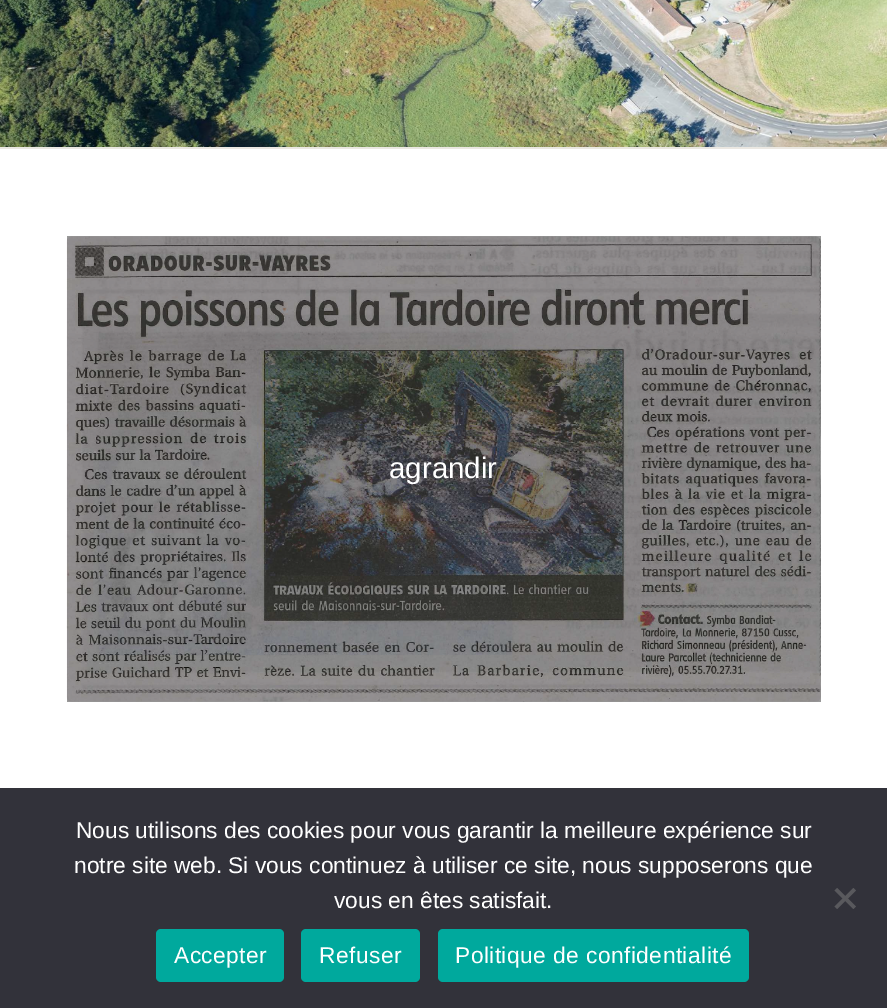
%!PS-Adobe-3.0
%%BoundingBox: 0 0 887 1008
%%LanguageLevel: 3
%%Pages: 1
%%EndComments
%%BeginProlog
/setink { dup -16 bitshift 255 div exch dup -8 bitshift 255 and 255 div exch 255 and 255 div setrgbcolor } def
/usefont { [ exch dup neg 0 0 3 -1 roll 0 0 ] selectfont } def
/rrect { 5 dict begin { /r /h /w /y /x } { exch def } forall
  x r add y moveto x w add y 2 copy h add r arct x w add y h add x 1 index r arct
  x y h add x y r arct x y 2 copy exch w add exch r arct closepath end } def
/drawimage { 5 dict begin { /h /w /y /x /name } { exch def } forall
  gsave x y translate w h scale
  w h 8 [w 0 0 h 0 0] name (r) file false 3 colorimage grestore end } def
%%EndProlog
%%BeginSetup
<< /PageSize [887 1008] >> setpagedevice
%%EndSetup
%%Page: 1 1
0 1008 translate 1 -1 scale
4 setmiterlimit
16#FFFFFF setink
0 0 887 1008 rectfill
16#999999 setink
67 236 754 466 rectfill
(img1.raw) 0 0 887 147 drawimage
16#EBE8E2 setink
0 147 887 2 rectfill
(img2.raw) 66 236 755 466 drawimage
/LiberationSans-Regular 29.5 usefont
16#FFFFFF setink
389 478 moveto (agrandir) show
16#32323A setink
0 788 887 220 rectfill
/LiberationSans-Regular 22.75 usefont
16#FFFFFF setink
[
    [(Nous utilisons des cookies pour vous garantir la meilleure expérience sur) 76 838]
    [(notre site web. Si vous continuez à utiliser ce site, nous supposerons que) 74 873]
    [(vous en êtes satisfait.) 334 908]
] { aload pop moveto show } forall
16#59595D setink
853.5 888 moveto 856 890.5 lineto 837 909 lineto 834.5 906.5 lineto closepath fill
834.5 890.5 moveto 837 888 lineto 856 906.5 lineto 853.5 909 lineto closepath fill
16#00A99D setink
156 929 128 53 5 rrect fill
16#FFFFFF setink
174 963 moveto 0.45 0 (Accepter) ashow
16#00A99D setink
301 929 119 53 5 rrect fill
16#FFFFFF setink
319 963 moveto 0.45 0 (Refuser) ashow
16#00A99D setink
438 929 311 53 5 rrect fill
16#FFFFFF setink
455 963 moveto 0.45 0 (Politique de confidentialité) ashow
showpage
%%EOF
